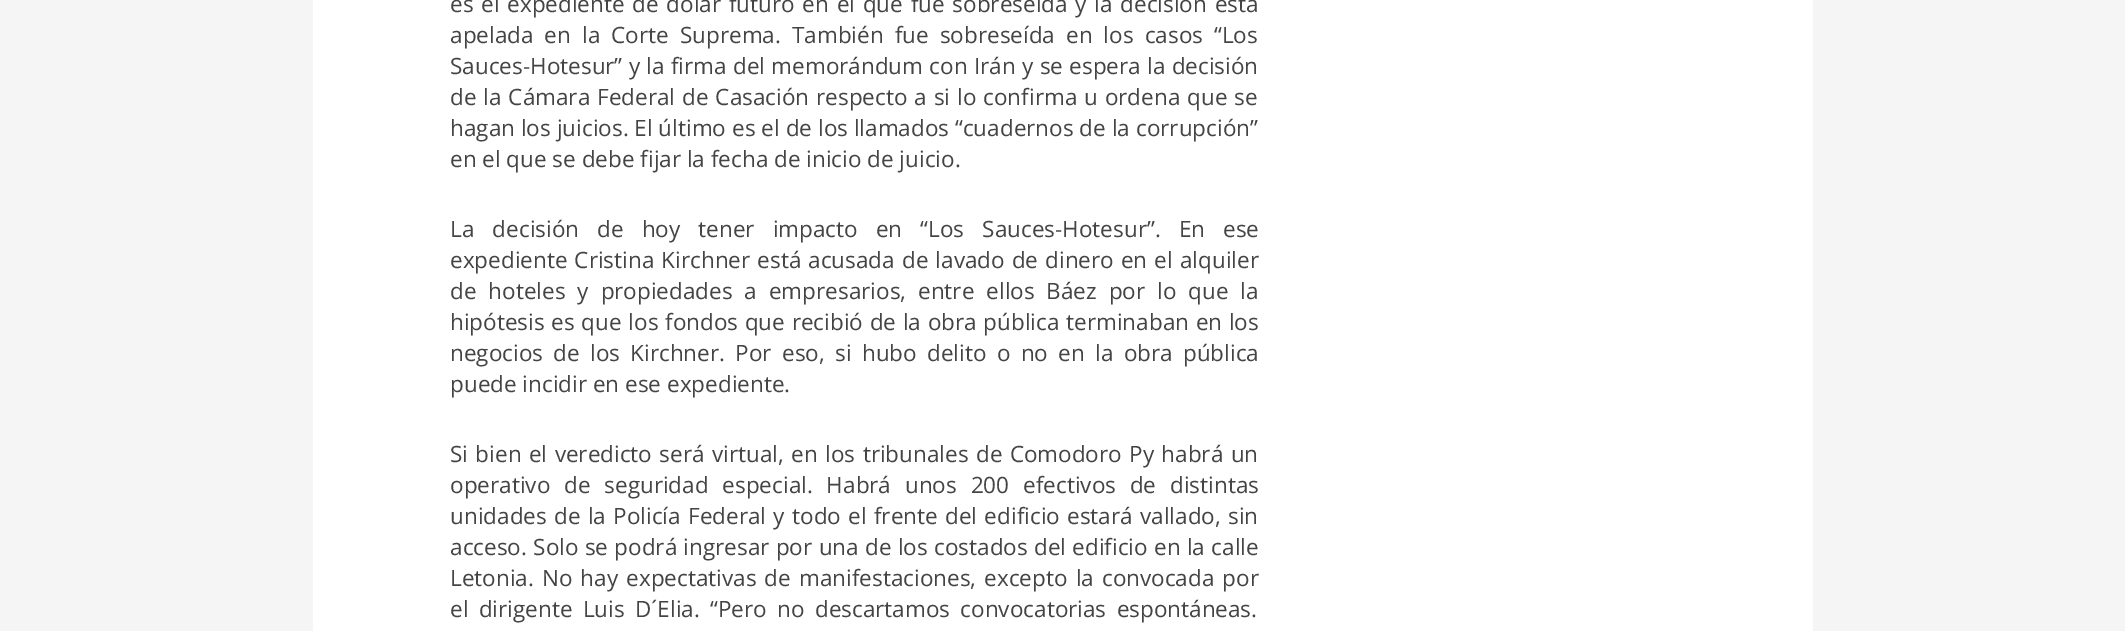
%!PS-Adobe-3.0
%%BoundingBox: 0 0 2125 631
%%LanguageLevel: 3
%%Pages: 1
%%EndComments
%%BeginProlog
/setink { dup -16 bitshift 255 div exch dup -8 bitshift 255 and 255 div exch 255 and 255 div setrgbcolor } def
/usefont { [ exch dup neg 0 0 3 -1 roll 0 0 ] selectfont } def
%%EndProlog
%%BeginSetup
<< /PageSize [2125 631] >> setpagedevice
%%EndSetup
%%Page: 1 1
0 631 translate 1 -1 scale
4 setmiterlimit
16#F5F5F5 setink
0 0 2125 631 rectfill
16#FFFFFF setink
313 0 1500 631 rectfill
/OpenSans-Regular 22.5 usefont
16#444444 setink
450 12 moveto 1.9 0 32 (es el expediente de dólar futuro en el que fue sobreseída y la decisión está) widthshow
450 43 moveto 5.25 0 32 (apelada en la Corte Suprema. También fue sobreseída en los casos “Los) widthshow
450 74 moveto 0.5 0 32 (Sauces-Hotesur” y la firma del memorándum con Irán y se espera la decisión) widthshow
450 105 moveto 1.1 0 32 (de la Cámara Federal de Casación respecto a si lo confirma u ordena que se) widthshow
450 136 moveto 0.1 0 32 (hagan los juicios. El último es el de los llamados “cuadernos de la corrupción”) widthshow
450 167 moveto (en el que se debe fijar la fecha de inicio de juicio.) show
450 237 moveto 12.25 0 32 (La decisión de hoy tener impacto en “Los Sauces-Hotesur”. En ese) widthshow
450 268 moveto 1.25 0 32 (expediente Cristina Kirchner está acusada de lavado de dinero en el alquiler) widthshow
450 299 moveto 6.1 0 32 (de hoteles y propiedades a empresarios, entre ellos Báez por lo que la) widthshow
450 330 moveto 0.9 0 32 (hipótesis es que los fondos que recibió de la obra pública terminaban en los) widthshow
450 361 moveto 4.5 0 32 (negocios de los Kirchner. Por eso, si hubo delito o no en la obra pública) widthshow
450 392 moveto (puede incidir en ese expediente.) show
450 462 moveto 1.6 0 32 (Si bien el veredicto será virtual, en los tribunales de Comodoro Py habrá un) widthshow
450 493 moveto 8 0 32 (operativo de seguridad especial. Habrá unos 200 efectivos de distintas) widthshow
450 524 moveto 1.5 0 32 (unidades de la Policía Federal y todo el frente del edificio estará vallado, sin) widthshow
450 555 moveto 0.5 0 32 (acceso. Solo se podrá ingresar por una de los costados del edificio en la calle) widthshow
450 586 moveto 2.25 0 32 (Letonia. No hay expectativas de manifestaciones, excepto la convocada por) widthshow
450 617 moveto 4.5 0 32 (el dirigente Luis D´Elia. “Pero no descartamos convocatorias espontáneas.) widthshow
showpage
%%EOF
